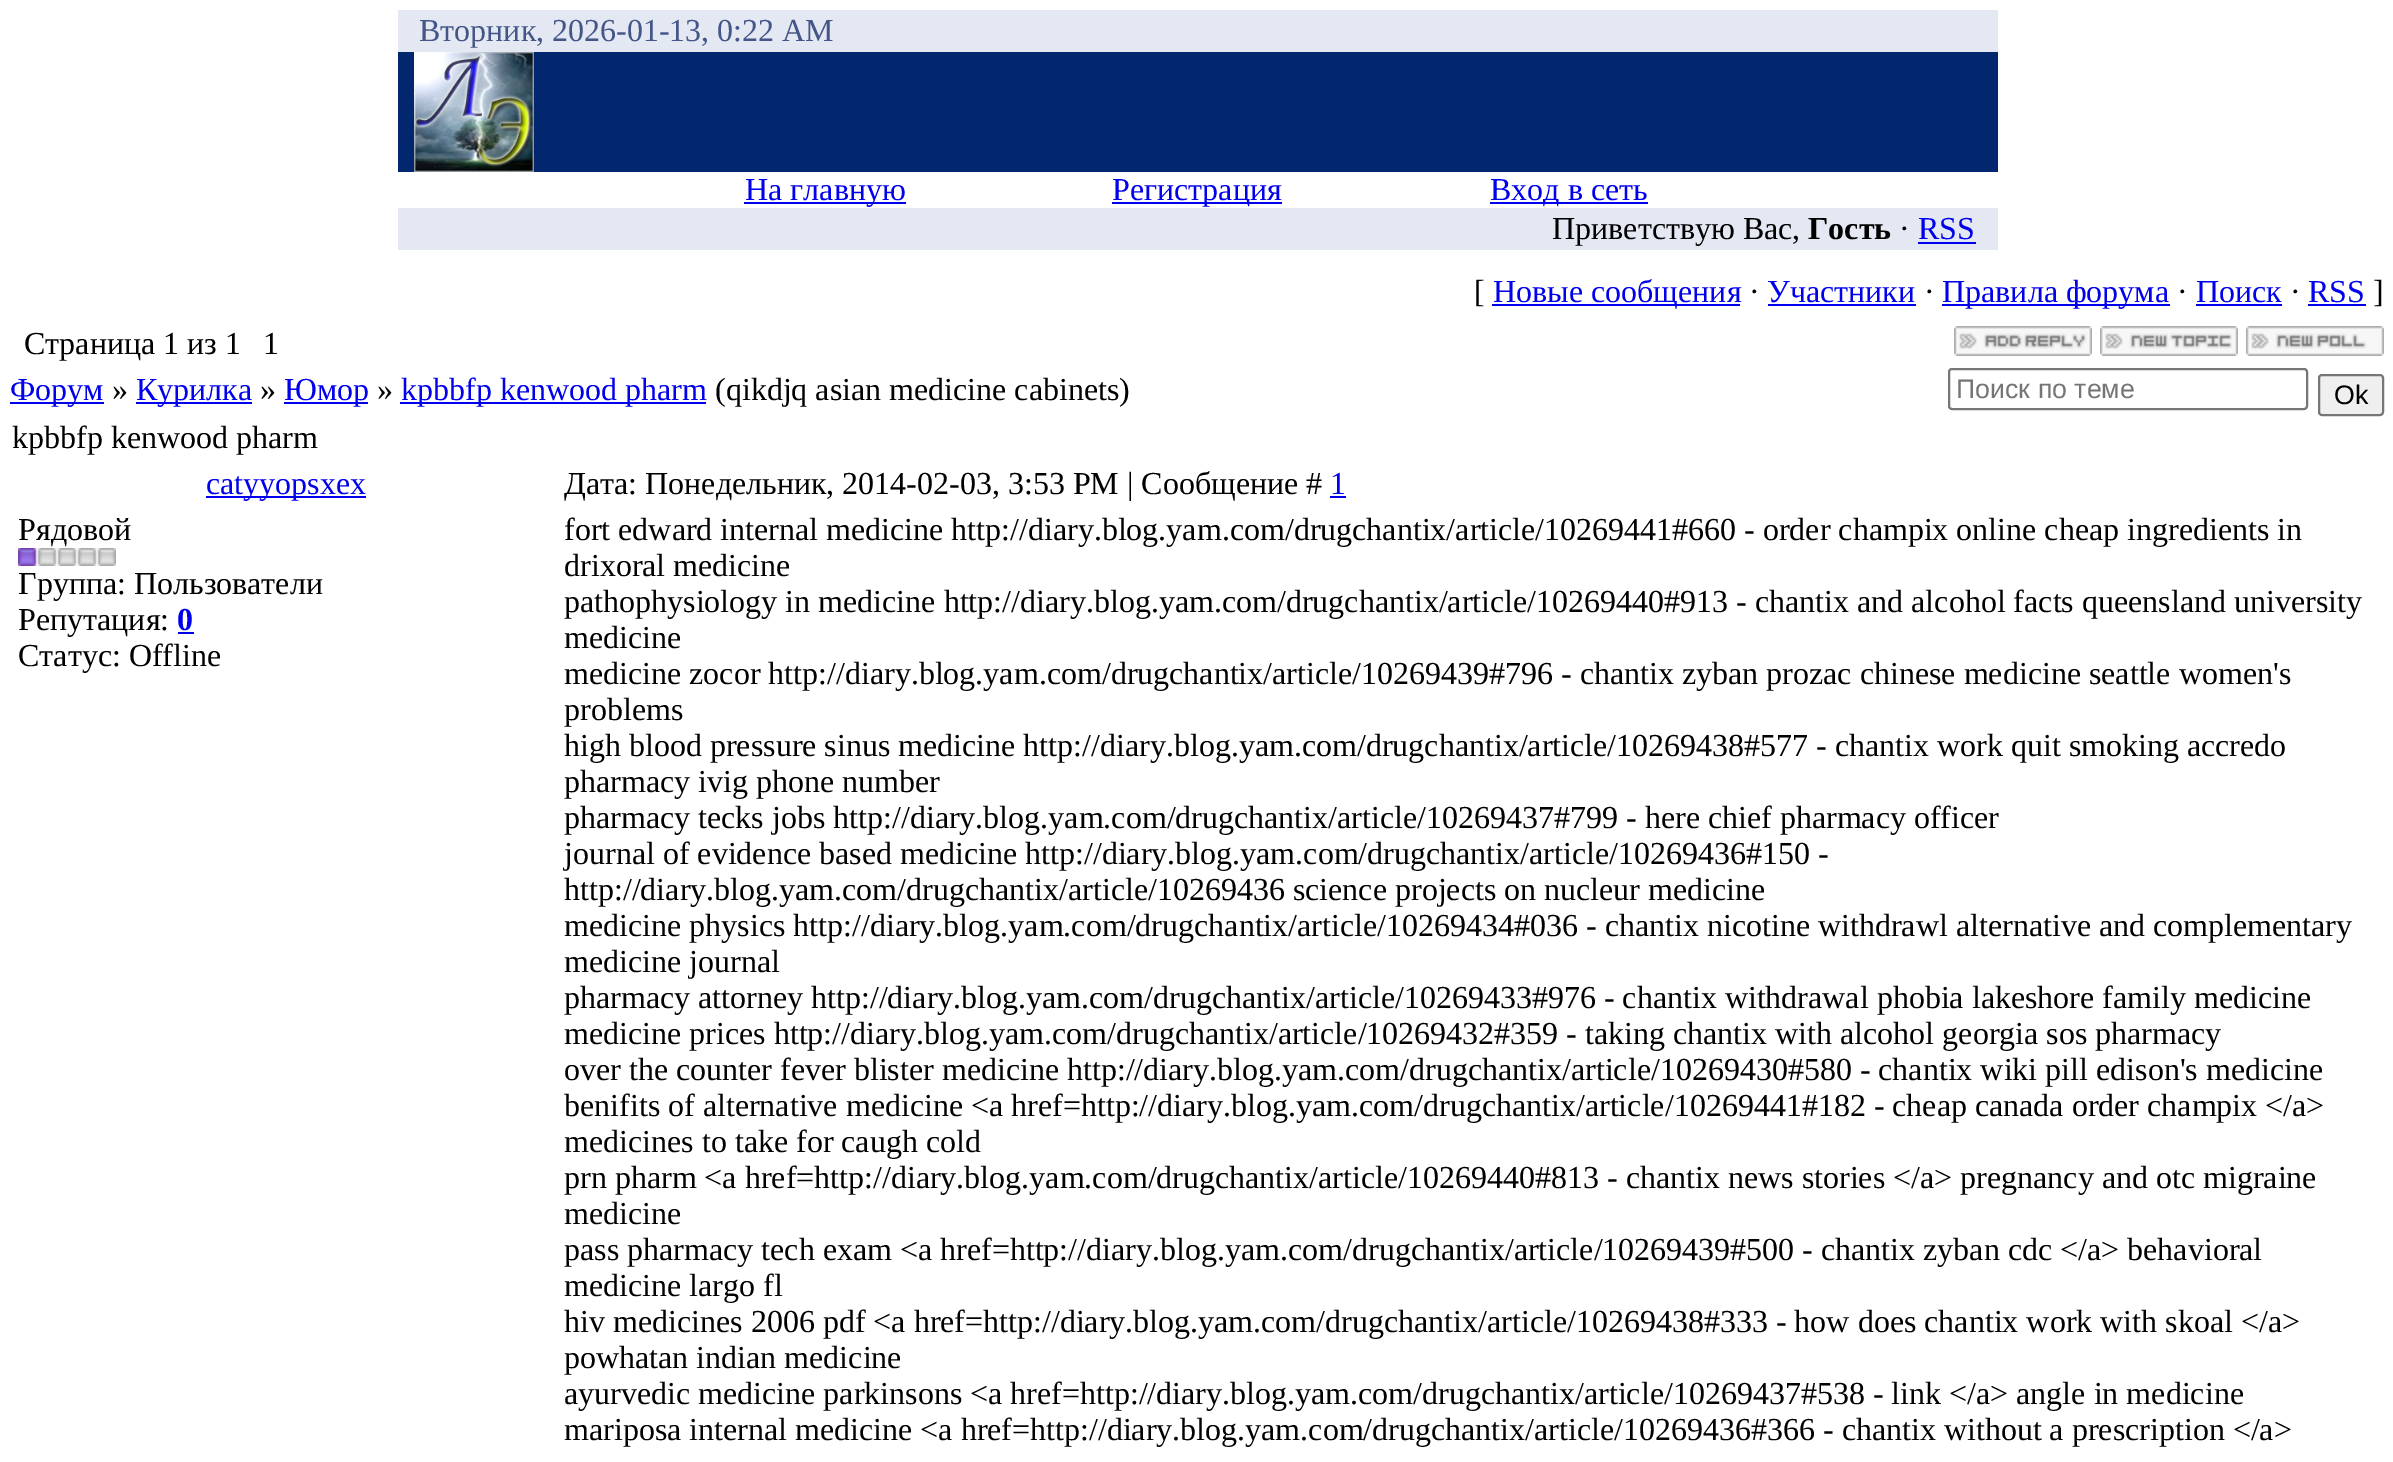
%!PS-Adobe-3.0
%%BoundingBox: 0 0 2393 1462
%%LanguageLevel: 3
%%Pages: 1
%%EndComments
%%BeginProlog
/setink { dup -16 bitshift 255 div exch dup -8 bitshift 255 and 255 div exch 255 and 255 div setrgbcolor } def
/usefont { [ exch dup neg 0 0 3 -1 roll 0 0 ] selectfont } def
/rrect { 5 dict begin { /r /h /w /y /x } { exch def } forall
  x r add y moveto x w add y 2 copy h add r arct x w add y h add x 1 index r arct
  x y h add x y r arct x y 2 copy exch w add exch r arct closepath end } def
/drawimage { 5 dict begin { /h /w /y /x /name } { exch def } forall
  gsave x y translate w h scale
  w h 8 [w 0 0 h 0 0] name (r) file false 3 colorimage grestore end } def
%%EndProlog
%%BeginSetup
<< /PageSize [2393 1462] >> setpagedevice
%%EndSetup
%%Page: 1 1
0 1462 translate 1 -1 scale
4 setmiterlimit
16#FFFFFF setink
0 0 2393 1462 rectfill
16#E4E8F3 setink
398 10 1600 42 rectfill
/LiberationSerif-Regular 32 usefont
16#445588 setink
419 41 moveto (Вторник, 2026-01-13, 0:22 AM) show
16#03276E setink
398 52 1600 120 rectfill
(img1.raw) 414 52 120 120 drawimage
16#0000EE setink
744 202 162 2 rectfill
745 200 moveto (На главную) show
1112 202 170 2 rectfill
1112 200 moveto (Регистрация) show
1490 202 158 2 rectfill
1490 200 moveto (Вход в сеть) show
16#E4E8F3 setink
398 208 1600 42 rectfill
16#000000 setink
1552 239 moveto (Приветствую Вас,) show
/LiberationSerif-Bold 32 usefont
1808 239 moveto (Гость) show
/LiberationSerif-Regular 32 usefont
1899 239 moveto (·) show
16#0000EE setink
1918 239 moveto (RSS) show
1918 242 58 2 rectfill
16#000000 setink
1474 302 moveto ([) show
16#0000EE setink
1492 304 248 2 rectfill
1493 302 moveto (Новые сообщения) show
16#000000 setink
1749 302 moveto (·) show
16#0000EE setink
1767 302 moveto (Участники) show
1768 304 148 2 rectfill
16#000000 setink
1924 302 moveto (·) show
16#0000EE setink
1942 304 228 2 rectfill
1942 302 moveto (Правила форума) show
16#000000 setink
2177 302 moveto (·) show
16#0000EE setink
2196 302 moveto (Поиск) show
2196 304 86 2 rectfill
16#000000 setink
2290 302 moveto (·) show
16#0000EE setink
2308 302 moveto (RSS) show
2308 304 58 2 rectfill
16#000000 setink
[
    [(]) 2373 302]
    [(Страница 1 из 1) 24 354]
    [(1) 263 354]
] { aload pop moveto show } forall
(img2.raw) 1954 326 138 30 drawimage
(img3.raw) 2100 326 138 30 drawimage
(img4.raw) 2246 326 138 30 drawimage
16#0000EE setink
10 402 94 2 rectfill
10 400 moveto (Форум) show
16#000000 setink
112 400 moveto (») show
16#0000EE setink
136 402 116 2 rectfill
136 400 moveto (Курилка) show
16#000000 setink
260 400 moveto (») show
16#0000EE setink
284 402 84 2 rectfill
284 400 moveto (Юмор) show
16#000000 setink
377 400 moveto (») show
16#0000EE setink
400 402 306 2 rectfill
401 400 moveto (kpbbfp kenwood pharm) show
16#000000 setink
715 400 moveto (\(qikdjq asian medicine cabinets\)) show
16#767676 setink
2 setlinewidth
1949 369 358 40 3 rrect stroke
/LiberationSans-Regular 26.75 usefont
16#757575 setink
1956 398 moveto (Поиск по теме) show
16#EFEFEF setink
2319 375 64 40 3 rrect gsave fill grestore
16#767676 setink
stroke
16#000000 setink
2334 404 moveto (Ok) show
/LiberationSerif-Regular 32 usefont
12 448 moveto (kpbbfp kenwood pharm) show
16#0000EE setink
206 496 160 2 rectfill
206 494 moveto (catyyopsxex) show
16#000000 setink
564 494 moveto (Дата: Понедельник, 2014-02-03, 3:53 PM | Сообщение #) show
16#0000EE setink
1330 494 moveto (1) show
1330 496 16 2 rectfill
16#000000 setink
18 540 moveto (Рядовой) show
(img5.raw) 18 548 98 18 drawimage
18 594 moveto (Группа: Пользователи) show
18 630 moveto (Репутация:) show
/LiberationSerif-Bold 32 usefont
16#0000EE setink
177 630 moveto (0) show
178 632 16 2 rectfill
/LiberationSerif-Regular 32 usefont
16#000000 setink
[
    [(Статус: Offline) 18 666]
    [(fort edward internal medicine http://diary.blog.yam.com/drugchantix/article/10269441#660 - order champix online cheap ingredients in) 564 540]
    [(drixoral medicine) 564 576]
    [(pathophysiology in medicine http://diary.blog.yam.com/drugchantix/article/10269440#913 - chantix and alcohol facts queensland university) 564 612]
    [(medicine) 564 648]
    [(medicine zocor http://diary.blog.yam.com/drugchantix/article/10269439#796 - chantix zyban prozac chinese medicine seattle women's) 564 684]
    [(problems) 564 720]
    [(high blood pressure sinus medicine http://diary.blog.yam.com/drugchantix/article/10269438#577 - chantix work quit smoking accredo) 564 756]
    [(pharmacy ivig phone number) 564 792]
    [(pharmacy tecks jobs http://diary.blog.yam.com/drugchantix/article/10269437#799 - here chief pharmacy officer) 564 828]
    [(journal of evidence based medicine http://diary.blog.yam.com/drugchantix/article/10269436#150 -) 564 864]
    [(http://diary.blog.yam.com/drugchantix/article/10269436 science projects on nucleur medicine) 564 900]
    [(medicine physics http://diary.blog.yam.com/drugchantix/article/10269434#036 - chantix nicotine withdrawl alternative and complementary) 564 936]
    [(medicine journal) 564 972]
    [(pharmacy attorney http://diary.blog.yam.com/drugchantix/article/10269433#976 - chantix withdrawal phobia lakeshore family medicine) 564 1008]
    [(medicine prices http://diary.blog.yam.com/drugchantix/article/10269432#359 - taking chantix with alcohol georgia sos pharmacy) 564 1044]
    [(over the counter fever blister medicine http://diary.blog.yam.com/drugchantix/article/10269430#580 - chantix wiki pill edison's medicine) 564 1080]
    [(benifits of alternative medicine <a href=http://diary.blog.yam.com/drugchantix/article/10269441#182 - cheap canada order champix </a>) 564 1116]
    [(medicines to take for caugh cold) 564 1152]
    [(prn pharm <a href=http://diary.blog.yam.com/drugchantix/article/10269440#813 - chantix news stories </a> pregnancy and otc migraine) 564 1188]
    [(medicine) 564 1224]
    [(pass pharmacy tech exam <a href=http://diary.blog.yam.com/drugchantix/article/10269439#500 - chantix zyban cdc </a> behavioral) 564 1260]
    [(medicine largo fl) 564 1296]
    [(hiv medicines 2006 pdf <a href=http://diary.blog.yam.com/drugchantix/article/10269438#333 - how does chantix work with skoal </a>) 564 1332]
    [(powhatan indian medicine) 564 1368]
    [(ayurvedic medicine parkinsons <a href=http://diary.blog.yam.com/drugchantix/article/10269437#538 - link </a> angle in medicine) 564 1404]
    [(mariposa internal medicine <a href=http://diary.blog.yam.com/drugchantix/article/10269436#366 - chantix without a prescription </a>) 564 1440]
] { aload pop moveto show } forall
showpage
%%EOF
